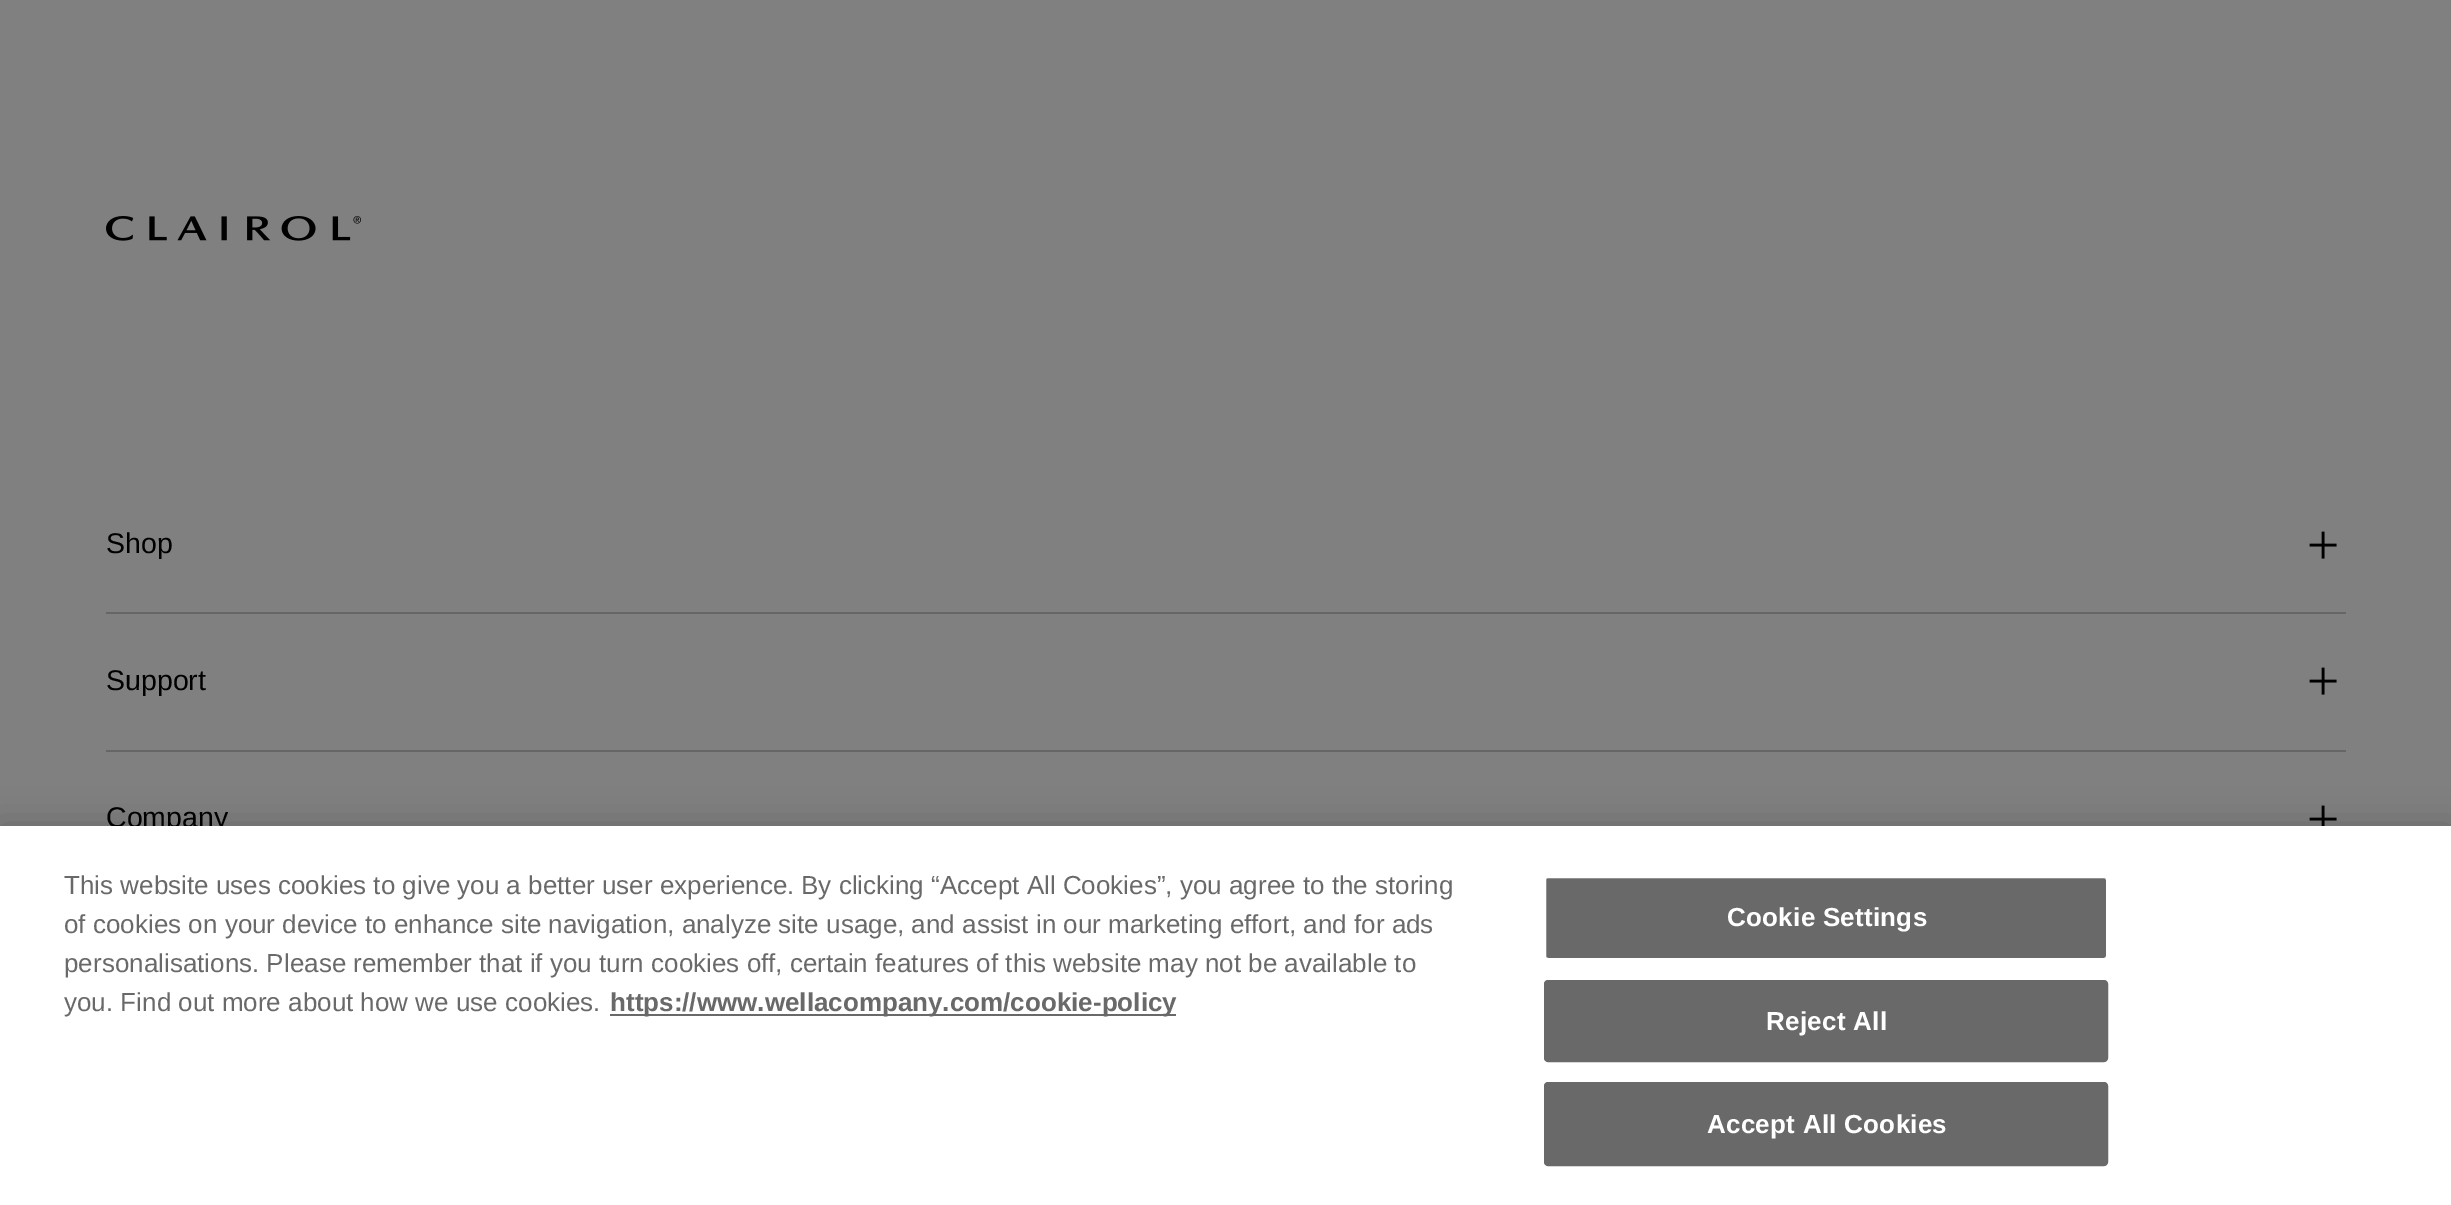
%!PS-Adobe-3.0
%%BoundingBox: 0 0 2451 1205
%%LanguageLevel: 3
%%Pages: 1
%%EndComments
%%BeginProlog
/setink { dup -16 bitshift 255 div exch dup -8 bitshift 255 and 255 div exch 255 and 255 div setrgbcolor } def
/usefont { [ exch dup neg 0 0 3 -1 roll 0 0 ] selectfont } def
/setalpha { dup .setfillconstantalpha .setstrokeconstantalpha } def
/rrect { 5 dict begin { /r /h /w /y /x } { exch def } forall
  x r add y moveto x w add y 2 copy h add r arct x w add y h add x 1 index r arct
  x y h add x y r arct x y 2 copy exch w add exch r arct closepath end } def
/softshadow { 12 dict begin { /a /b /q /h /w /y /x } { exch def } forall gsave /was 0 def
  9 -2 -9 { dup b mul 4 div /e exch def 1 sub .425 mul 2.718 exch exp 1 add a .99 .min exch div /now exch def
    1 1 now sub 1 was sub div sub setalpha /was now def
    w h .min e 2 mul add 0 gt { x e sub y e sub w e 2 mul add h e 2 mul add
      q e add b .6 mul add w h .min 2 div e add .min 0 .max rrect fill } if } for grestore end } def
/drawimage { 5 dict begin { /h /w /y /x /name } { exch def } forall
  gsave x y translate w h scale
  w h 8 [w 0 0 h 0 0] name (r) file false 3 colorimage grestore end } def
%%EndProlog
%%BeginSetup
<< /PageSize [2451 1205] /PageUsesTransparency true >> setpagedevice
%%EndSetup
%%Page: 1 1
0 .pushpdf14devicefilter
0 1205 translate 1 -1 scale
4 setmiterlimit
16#808080 setink
0 0 2451 1205 rectfill
(img1.raw) 106 216 255 25 drawimage
16#666666 setink
106 612 2240 2 rectfill
/LiberationSans-Regular 28.5 usefont
16#000000 setink
106 553 moveto (Shop) show
(img2.raw) 2309 531 28 28 drawimage
16#666666 setink
106 750 2240 2 rectfill
16#000000 setink
106 690 moveto (Support) show
(img2.raw) 2309 667 28 28 drawimage
106 827 moveto (Company) show
(img3.raw) 2309 805 28 21 drawimage
0 826 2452 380 0 18 0.2 softshadow
16#FFFFFF setink
0 826 2451 379 rectfill
/LiberationSans-Regular 26.02 usefont
16#696969 setink
[
    [(This website uses cookies to give you a better user experience.) 64 894]
    [(By clicking “Accept All Cookies”, you agree to the storing) 801 894]
    [(of cookies on your device to enhance site navigation, analyze site usage, and assist in our marketing effort, and for ads) 64 933]
    [(personalisations. Please remember that if you turn cookies off, certain features of this website may not be available to) 64 972]
    [(you. Find out more about how we use cookies.) 64 1011]
] { aload pop moveto show } forall
610 1014 566 2 rectfill
/LiberationSans-Bold 26.02 usefont
610 1011 moveto (https://www.wellacompany.com/cookie-policy) show
1545 877 562 82 3 rrect gsave fill grestore
16#FFFFFF setink
2 setlinewidth
stroke
1727 926 moveto 0.25 0 (Cookie Settings) ashow
16#696969 setink
1545 981 562 80 3 rrect gsave fill grestore
stroke
16#FFFFFF setink
1766 1030 moveto 0.25 0 (Reject All) ashow
16#696969 setink
1545 1083 562 82 3 rrect gsave fill grestore
stroke
16#FFFFFF setink
1707 1133 moveto 0.25 0 (Accept All Cookies) ashow
.poppdf14devicefilter showpage
%%EOF
